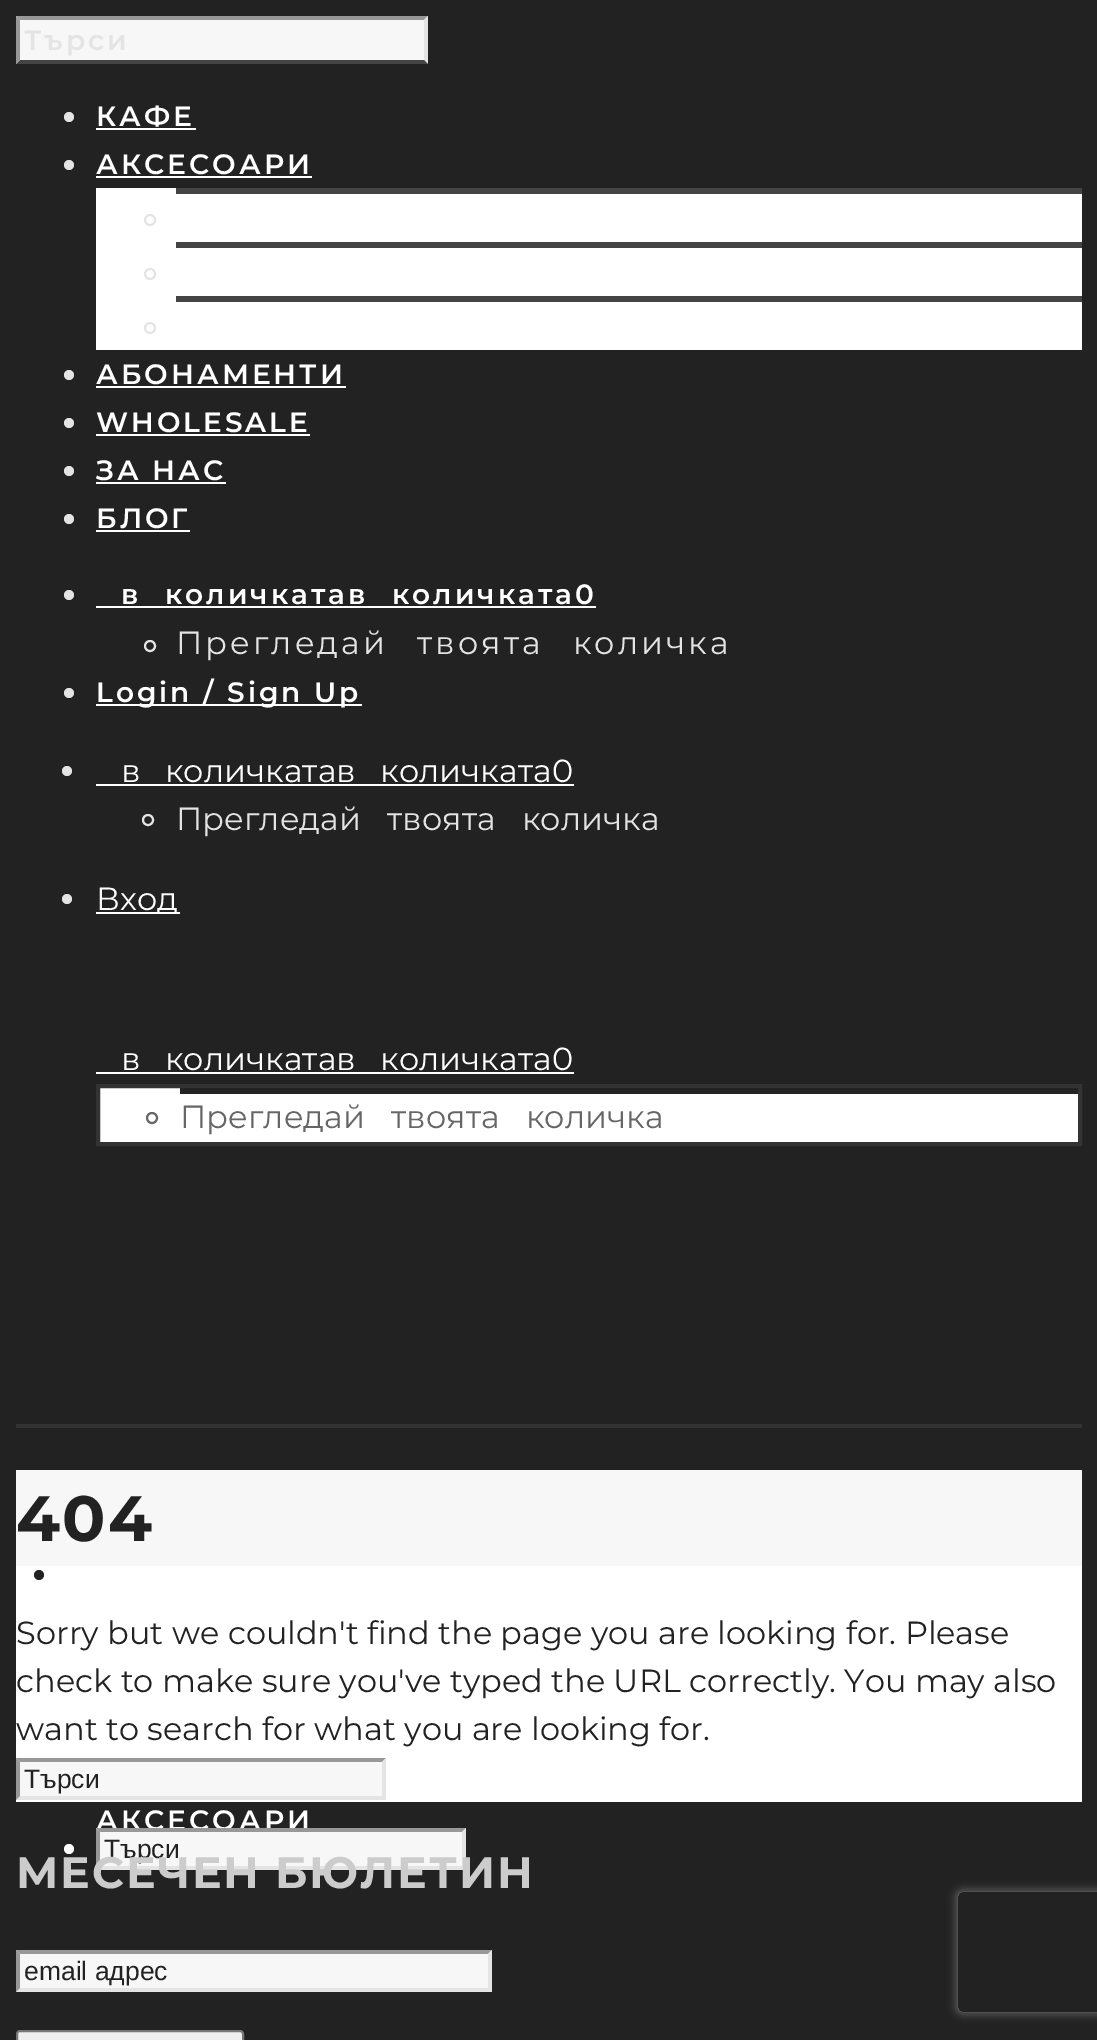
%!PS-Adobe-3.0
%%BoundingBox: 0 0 1097 2040
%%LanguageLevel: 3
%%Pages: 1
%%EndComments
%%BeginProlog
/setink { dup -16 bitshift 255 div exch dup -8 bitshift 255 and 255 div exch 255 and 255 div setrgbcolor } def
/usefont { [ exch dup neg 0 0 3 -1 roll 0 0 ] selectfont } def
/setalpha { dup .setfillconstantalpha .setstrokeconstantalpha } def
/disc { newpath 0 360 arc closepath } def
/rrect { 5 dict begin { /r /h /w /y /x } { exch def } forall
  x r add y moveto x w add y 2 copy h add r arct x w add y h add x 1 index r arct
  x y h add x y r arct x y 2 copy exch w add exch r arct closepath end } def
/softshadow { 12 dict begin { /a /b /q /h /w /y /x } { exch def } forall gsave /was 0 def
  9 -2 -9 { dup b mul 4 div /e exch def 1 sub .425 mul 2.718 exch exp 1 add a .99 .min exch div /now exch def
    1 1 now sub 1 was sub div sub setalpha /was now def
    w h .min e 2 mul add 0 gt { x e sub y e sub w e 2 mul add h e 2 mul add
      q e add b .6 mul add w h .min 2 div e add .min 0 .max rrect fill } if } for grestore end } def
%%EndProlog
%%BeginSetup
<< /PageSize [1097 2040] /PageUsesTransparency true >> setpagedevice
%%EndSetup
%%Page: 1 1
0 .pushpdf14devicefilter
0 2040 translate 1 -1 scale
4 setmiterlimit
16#222222 setink
0 0 1097 2040 rectfill
16#F7F7F7 setink
16 16 412 48 rectfill
16#989898 setink
16 16 moveto 428 16 lineto 424 20 lineto 20 20 lineto closepath fill
16#E4E4E4 setink
428 16 moveto 428 64 lineto 424 60 lineto 424 20 lineto closepath fill
16#444444 setink
428 64 moveto 16 64 lineto 20 60 lineto 424 60 lineto closepath fill
16#989898 setink
16 64 moveto 16 16 lineto 20 20 lineto 20 60 lineto closepath fill
/Montserrat-SemiBold 28 usefont
16#E4E4E4 setink
24 50 moveto 3 0 (Търси) ashow
69 117 5 disc fill
16#FFFFFF setink
96 126 moveto 3 0 (КАФЕ) ashow
96 128 100 2 rectfill
16#E4E4E4 setink
69 165 5 disc fill
16#FFFFFF setink
96 174 moveto 3 0 (АКСЕСОАРИ) ashow
[
    [96 176 216 2 16#FFFFFF]
    [96 188 986 162 16#FFFFFF]
    [176 188 906 6 16#444444]
] { aload pop setink rectfill } forall
16#E4E4E4 setink
2 setlinewidth
150 220 5 disc stroke
16#444444 setink
176 242 906 6 rectfill
16#E4E4E4 setink
150 274 5 disc stroke
16#444444 setink
176 296 906 6 rectfill
16#E4E4E4 setink
150 328 5 disc stroke
69 375 5 disc fill
16#FFFFFF setink
96 384 moveto 3 0 (АБОНАМЕНТИ) ashow
96 386 250 2 rectfill
16#E4E4E4 setink
69 423 5 disc fill
16#FFFFFF setink
96 432 moveto 3 0 (WHOLESALE) ashow
96 434 214 2 rectfill
16#E4E4E4 setink
69 471 5 disc fill
16#FFFFFF setink
96 480 moveto 3 0 (ЗА НАС) ashow
96 482 130 2 rectfill
16#E4E4E4 setink
69 519 5 disc fill
16#FFFFFF setink
96 528 moveto 3 0 (БЛОГ) ashow
96 530 94 2 rectfill
16#E4E4E4 setink
69 595 5 disc fill
16#FFFFFF setink
121 604 moveto 13 0 32 3 0 (в количкатав количката) awidthshow
96 606 500 2 rectfill
575 604 moveto 3 0 (0) ashow
16#E4E4E4 setink
150 646 5 disc stroke
/Montserrat-Regular 32 usefont
176 654 moveto 18 0 32 3 0 (Прегледай твоята количка) awidthshow
69 693 5 disc fill
16#FFFFFF setink
96 704 266 2 rectfill
/Montserrat-SemiBold 28 usefont
96 702 moveto 3 0 (Login / Sign Up) ashow
16#E4E4E4 setink
67 771 5 disc fill
/Montserrat-Regular 32 usefont
16#FFFFFF setink
121 782 moveto 16 0 32 (в количкатав количката) widthshow
96 784 478 2 rectfill
552 782 moveto (0) show
16#E4E4E4 setink
148 820 5 disc stroke
176 830 moveto 18 0 32 (Прегледай твоята количка) widthshow
67 899 5 disc fill
16#FFFFFF setink
96 912 84 2 rectfill
96 910 moveto (Вход) show
121 1070 moveto 16 0 32 (в количкатав количката) widthshow
96 1072 478 2 rectfill
552 1070 moveto (0) show
98 1086 moveto 1080 1086 lineto 1080 1144 lineto 98 1144 lineto closepath gsave fill grestore
16#333333 setink
4 setlinewidth
stroke
16#232323 setink
180 1088 898 6 rectfill
16#666666 setink
2 setlinewidth
152 1118 5 disc stroke
180 1128 moveto 18 0 32 (Прегледай твоята количка) widthshow
16#FFFFFF setink
16 1566 1066 236 rectfill
16#F7F7F7 setink
16 1470 1066 96 rectfill
/Montserrat-Bold 64 usefont
16#222222 setink
16 1541 moveto 2 0 (404) ashow
/Montserrat-Regular 32 usefont
[
    [(Sorry but we couldn't find the page you are looking for. Please) 16 1644]
    [(check to make sure you've typed the URL correctly. You may also) 16 1692]
    [(want to search for what you are looking for.) 16 1740]
] { aload pop moveto show } forall
16#F7F7F7 setink
16 1758 370 42 rectfill
16#989898 setink
16 1758 moveto 386 1758 lineto 382 1762 lineto 20 1762 lineto closepath fill
16#E4E4E4 setink
386 1758 moveto 386 1800 lineto 382 1796 lineto 382 1762 lineto closepath fill
386 1800 moveto 16 1800 lineto 20 1796 lineto 382 1796 lineto closepath fill
16#989898 setink
16 1800 moveto 16 1758 lineto 20 1762 lineto 20 1796 lineto closepath fill
/LiberationSans-Regular 26.5 usefont
16#222222 setink
24 1788 moveto (Търси) show
16#333333 setink
16 1424 1066 4 rectfill
16#222222 setink
39 1575 5 disc fill
/Montserrat-SemiBold 28 usefont
16#FFFFFF setink
96 1830 moveto 3 0 (АКСЕСОАРИ) ashow
69 1849 5 disc fill
16#F7F7F7 setink
96 1828 370 42 rectfill
16#989898 setink
96 1828 moveto 466 1828 lineto 462 1832 lineto 100 1832 lineto closepath fill
16#E4E4E4 setink
466 1828 moveto 466 1870 lineto 462 1866 lineto 462 1832 lineto closepath fill
466 1870 moveto 96 1870 lineto 100 1866 lineto 462 1866 lineto closepath fill
16#989898 setink
96 1870 moveto 96 1828 lineto 100 1832 lineto 100 1866 lineto closepath fill
/LiberationSans-Regular 26.5 usefont
16#222222 setink
104 1858 moveto (Търси) show
/Montserrat-Bold 44 usefont
16#CCCCCC setink
16 1888 moveto -1 0 32 2 0 (МЕСЕЧЕН БЮЛЕТИН) awidthshow
16#F7F7F7 setink
16 1950 476 42 rectfill
16#989898 setink
16 1950 moveto 492 1950 lineto 488 1954 lineto 20 1954 lineto closepath fill
16#E4E4E4 setink
492 1950 moveto 492 1992 lineto 488 1988 lineto 488 1954 lineto closepath fill
492 1992 moveto 16 1992 lineto 20 1988 lineto 488 1988 lineto closepath fill
16#989898 setink
16 1992 moveto 16 1950 lineto 20 1954 lineto 20 1988 lineto closepath fill
/LiberationSans-Regular 26.5 usefont
16#222222 setink
24 1980 moveto (email адрес) show
16#EFEFEF setink
17 2031 226 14 3 rrect gsave fill grestore
16#767676 setink
stroke
gsave
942 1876 moveto 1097 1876 lineto 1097 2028 lineto 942 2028 lineto closepath 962 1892 moveto 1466 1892 lineto 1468 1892 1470 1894 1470 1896 curveto 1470 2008 lineto 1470 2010 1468 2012 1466 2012 curveto 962 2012 lineto 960 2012 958 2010 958 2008 curveto 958 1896 lineto 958 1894 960 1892 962 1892 curveto closepath eoclip newpath
16#808080 setink
958 1892 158 120 4 5 1 softshadow
grestore
.poppdf14devicefilter showpage
%%EOF
